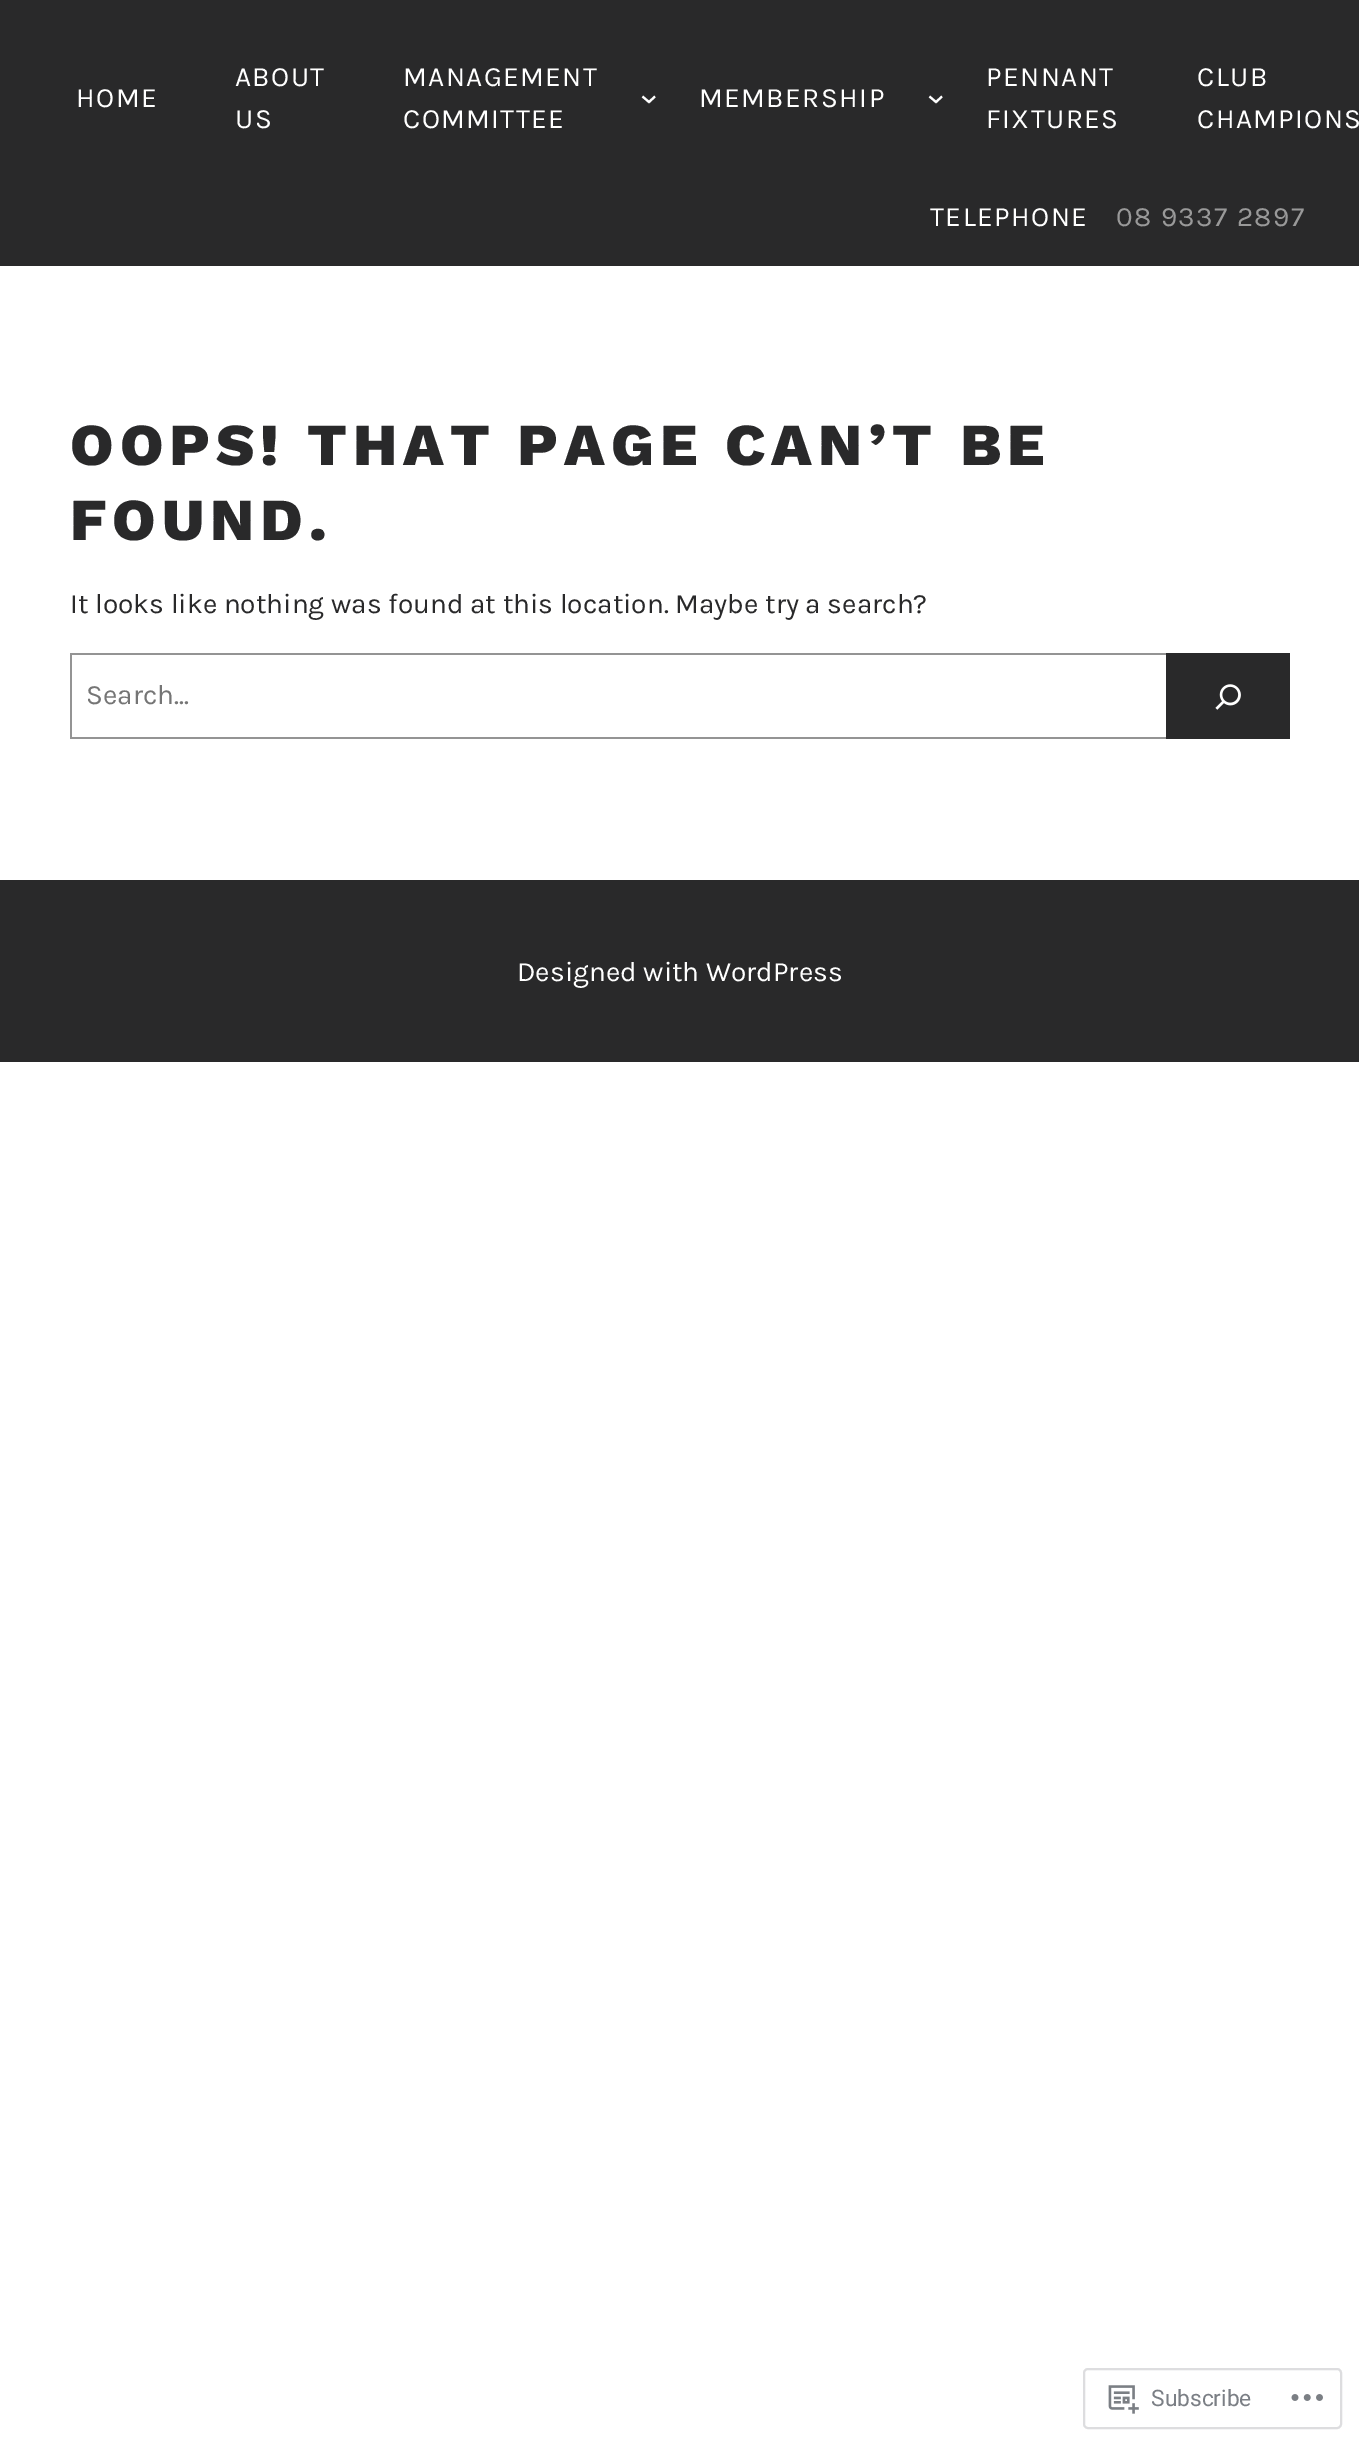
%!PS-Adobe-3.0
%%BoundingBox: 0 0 1359 2445
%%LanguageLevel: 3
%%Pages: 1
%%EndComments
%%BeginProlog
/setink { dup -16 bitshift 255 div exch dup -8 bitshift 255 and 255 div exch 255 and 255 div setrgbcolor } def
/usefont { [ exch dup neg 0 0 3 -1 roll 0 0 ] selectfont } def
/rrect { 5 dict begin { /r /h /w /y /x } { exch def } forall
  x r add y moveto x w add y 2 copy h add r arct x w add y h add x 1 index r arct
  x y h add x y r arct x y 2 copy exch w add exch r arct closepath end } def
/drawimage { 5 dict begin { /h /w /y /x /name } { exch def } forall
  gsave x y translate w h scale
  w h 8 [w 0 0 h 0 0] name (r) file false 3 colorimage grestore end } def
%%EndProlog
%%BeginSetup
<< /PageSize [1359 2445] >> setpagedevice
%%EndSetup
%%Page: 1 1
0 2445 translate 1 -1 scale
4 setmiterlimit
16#FFFFFF setink
0 0 1359 2445 rectfill
16#29292A setink
0 0 1359 266 rectfill
/Karla-Regular 28 usefont
16#FFFFFF setink
76 107 moveto 1.4 0 (HOME) ashow
235 86 moveto 1.4 0 (ABOUT) ashow
235 128 moveto 1.4 0 (US) ashow
403 86 moveto 1.4 0 (MANAGEMENT) ashow
403 128 moveto 1.4 0 (COMMITTEE) ashow
2.1 setlinewidth
642.5 96.5 moveto 649 102 lineto 655 96.5 lineto stroke
699 107 moveto 1.4 0 (MEMBERSHIP) ashow
929.5 96.5 moveto 936 102 lineto 942 96.5 lineto stroke
986 86 moveto 1.4 0 (PENNANT) ashow
986 128 moveto 1.4 0 (FIXTURES) ashow
1197 86 moveto 1.4 0 (CLUB) ashow
1197 128 moveto 1.4 0 (CHAMPIONS) ashow
930 226 moveto 1.4 0 (TELEPHONE) ashow
16#999999 setink
1116 226 moveto 1.4 0 (08 9337 2897) ashow
/WorkSans-ExtraBold 59.5 usefont
16#29292A setink
70 465 moveto 5.95 0 (OOPS! THAT PAGE CAN’T BE) ashow
70 540 moveto 5.95 0 (FOUND.) ashow
/Karla-Regular 28 usefont
70 613 moveto (It looks like nothing was found at this location. Maybe try a search?) show
[
    [70 653 1096 2 16#949494]
    [70 737 1096 2 16#949494]
    [70 653 2 86 16#949494]
] { aload pop setink rectfill } forall
16#757575 setink
86 704 moveto (Search...) show
16#29292A setink
1166 653 124 86 rectfill
(img1.raw) 1215 684 26 26 drawimage
0 880 1359 182 rectfill
16#FFFFFF setink
517 981 moveto (Designed with WordPress) show
16#DDDDDF setink
2 setlinewidth
1084 2369 257 59 4 rrect stroke
(img2.raw) 1108 2385 31 29 drawimage
/Roboto-Regular 22.75 usefont
16#7B7F85 setink
1151 2406 moveto (Subscribe) show
(img3.raw) 1291 2394 32 7 drawimage
showpage
%%EOF
